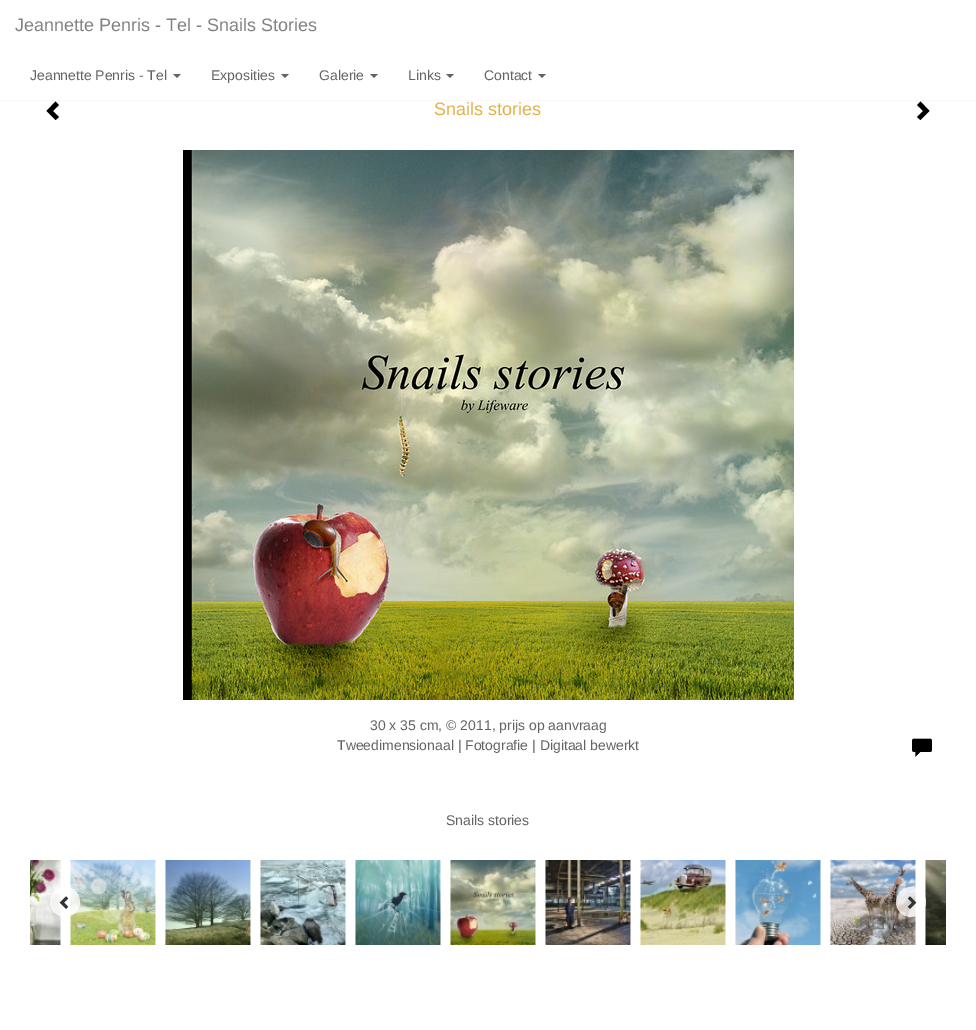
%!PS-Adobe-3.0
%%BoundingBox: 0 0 976 1030
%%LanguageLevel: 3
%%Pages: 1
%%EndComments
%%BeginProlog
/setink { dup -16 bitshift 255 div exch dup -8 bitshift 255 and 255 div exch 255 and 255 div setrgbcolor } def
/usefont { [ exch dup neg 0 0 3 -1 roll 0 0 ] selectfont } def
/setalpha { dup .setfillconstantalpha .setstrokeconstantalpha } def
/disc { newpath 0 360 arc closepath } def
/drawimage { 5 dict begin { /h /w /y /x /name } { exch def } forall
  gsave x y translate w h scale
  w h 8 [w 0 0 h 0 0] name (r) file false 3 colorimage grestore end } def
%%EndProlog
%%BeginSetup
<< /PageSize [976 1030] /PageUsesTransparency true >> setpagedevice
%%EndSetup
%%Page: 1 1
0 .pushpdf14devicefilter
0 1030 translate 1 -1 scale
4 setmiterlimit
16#FFFFFF setink
0 0 976 1030 rectfill
16#F8F8F8 setink
0 100 976 1 rectfill
/LiberationSans-Regular 18 usefont
16#838282 setink
15 31 moveto (Jeannette Penris - Tel - Snails Stories) show
/LiberationSans-Regular 14 usefont
16#646363 setink
30 80 moveto (Jeannette Penris - Tel) show
173 74 moveto 181 74 lineto 177 78 lineto closepath fill
211 80 moveto (Exposities) show
281 74 moveto 289 74 lineto 285 78 lineto closepath fill
319 80 moveto (Galerie) show
370 74 moveto 378 74 lineto 374 78 lineto closepath fill
408 80 moveto (Links) show
446 74 moveto 454 74 lineto 450 78 lineto closepath fill
484 80 moveto (Contact) show
538 74 moveto 546 74 lineto 542 78 lineto closepath fill
16#000000 setink
59 105 moveto 53 111 lineto 59 117 lineto 55.5 120 lineto 46.5 111 lineto 55.5 101.5 lineto closepath fill
/LiberationSans-Regular 18 usefont
16#E2B14B setink
434 115 moveto (Snails stories) show
16#000000 setink
929.5 111 moveto 920.5 120 lineto 917 117 lineto 923 111 lineto 917 105 lineto 920.5 101.5 lineto closepath fill
(img1.raw) 183 150 611 550 drawimage
/LiberationSans-Regular 14 usefont
16#646363 setink
370 730 moveto (30 x 35 cm, © 2011, prijs op aanvraag) show
337 750 moveto (Tweedimensionaal | Fotografie | Digitaal bewerkt) show
(img2.raw) 912 738 20 19 drawimage
446 825 moveto (Snails stories) show
(img3.raw) 30 860 31 85 drawimage
(img4.raw) 70 860 86 85 drawimage
(img5.raw) 165 860 86 85 drawimage
(img6.raw) 260 860 86 85 drawimage
(img7.raw) 355 860 86 85 drawimage
(img8.raw) 450 860 86 85 drawimage
(img9.raw) 545 860 86 85 drawimage
(img10.raw) 640 860 86 85 drawimage
(img11.raw) 735 860 86 85 drawimage
(img12.raw) 830 860 86 85 drawimage
(img13.raw) 925 860 21 85 drawimage
0.75 setalpha
16#FFFFFF setink
65 902 15 disc fill
1 setalpha
(img14.raw) 59 896 10 13 drawimage
0.75 setalpha
911 902 15 disc fill
1 setalpha
(img15.raw) 907 896 10 13 drawimage
.poppdf14devicefilter showpage
%%EOF
